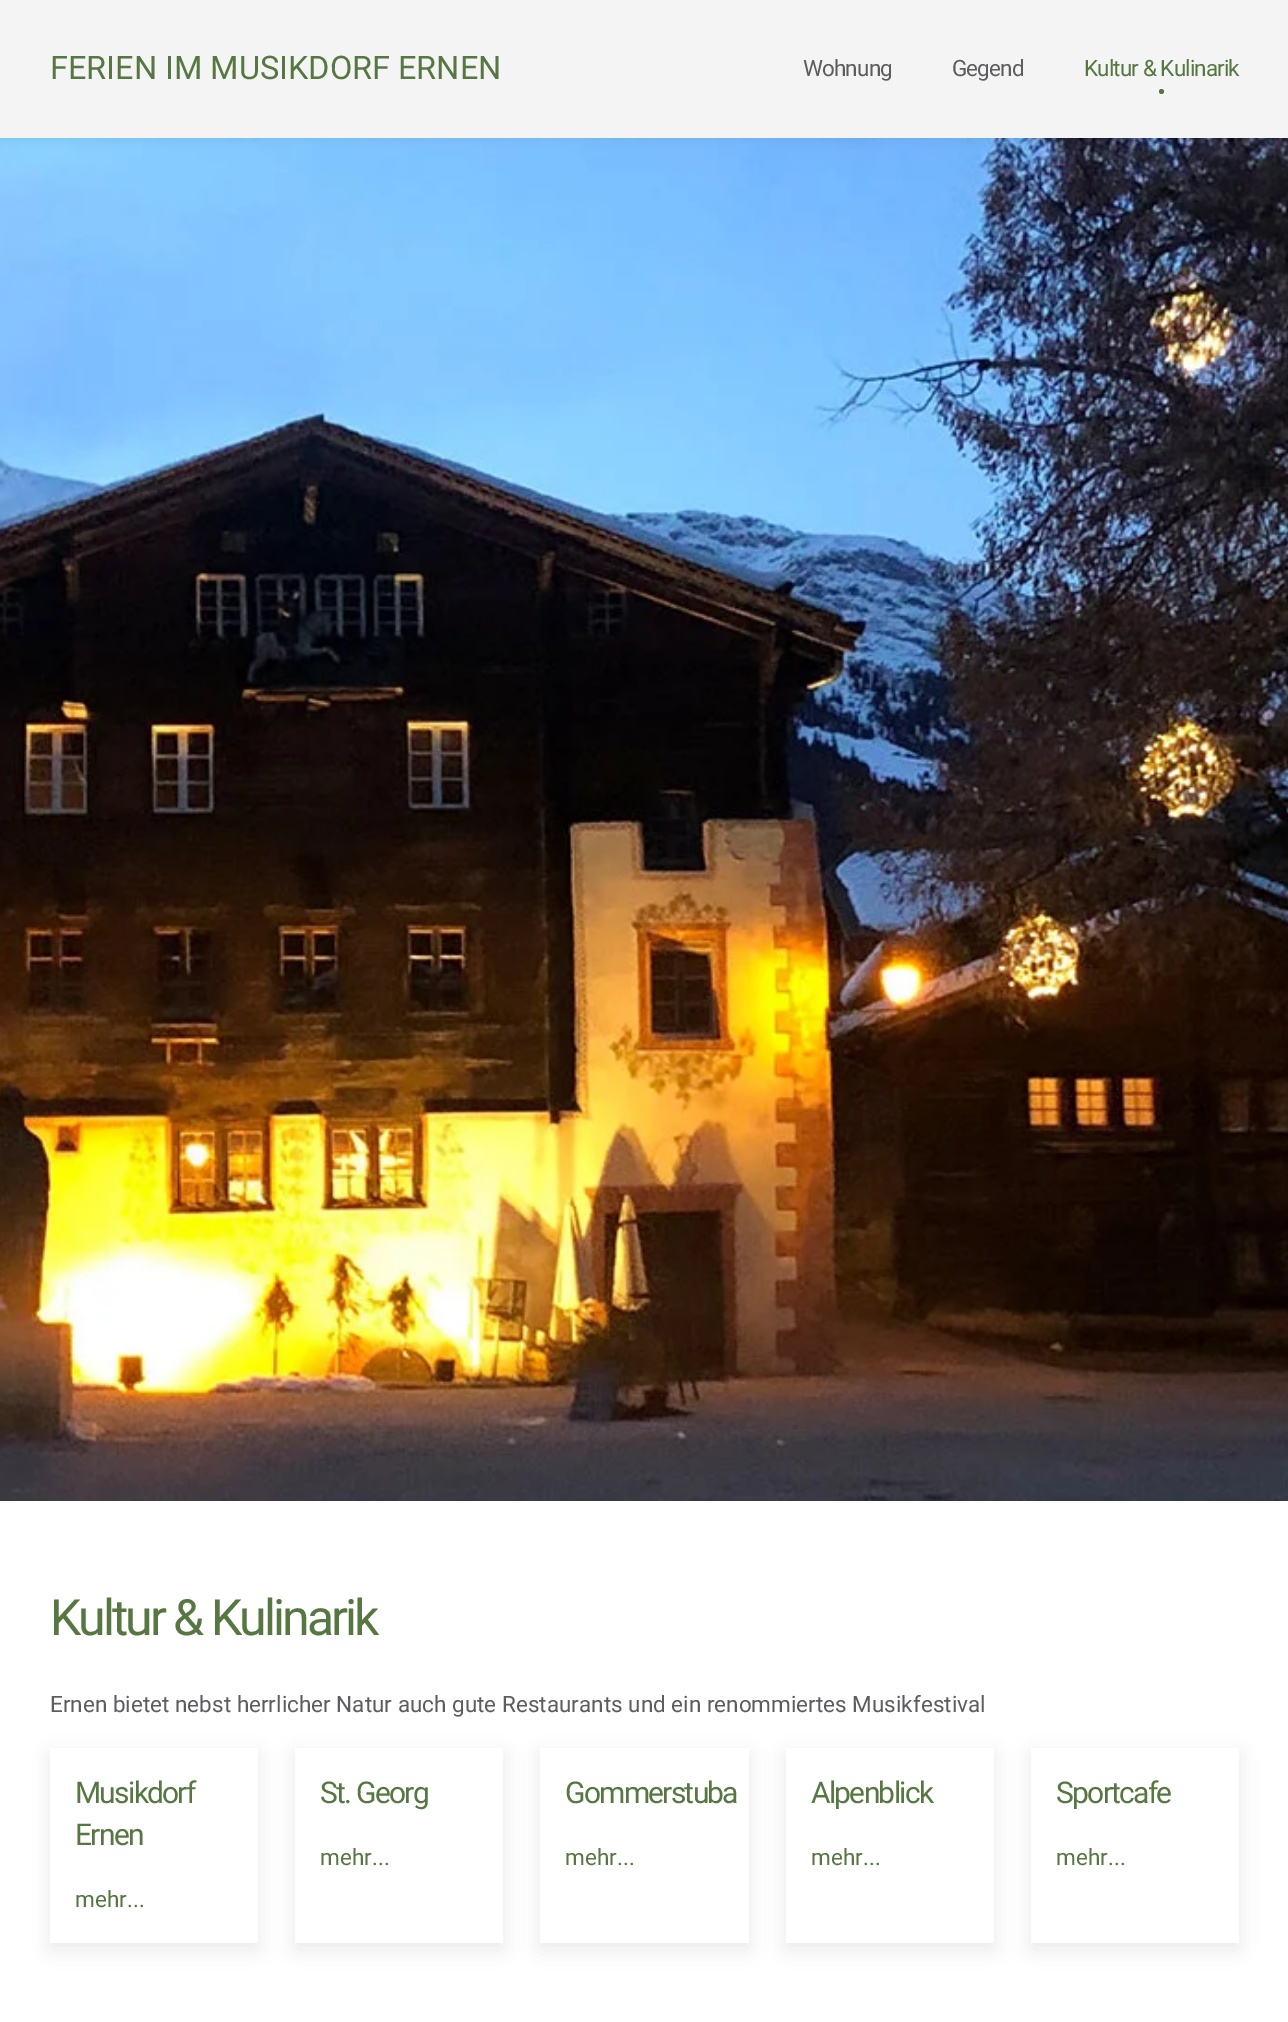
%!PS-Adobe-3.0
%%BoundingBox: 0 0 1288 2022
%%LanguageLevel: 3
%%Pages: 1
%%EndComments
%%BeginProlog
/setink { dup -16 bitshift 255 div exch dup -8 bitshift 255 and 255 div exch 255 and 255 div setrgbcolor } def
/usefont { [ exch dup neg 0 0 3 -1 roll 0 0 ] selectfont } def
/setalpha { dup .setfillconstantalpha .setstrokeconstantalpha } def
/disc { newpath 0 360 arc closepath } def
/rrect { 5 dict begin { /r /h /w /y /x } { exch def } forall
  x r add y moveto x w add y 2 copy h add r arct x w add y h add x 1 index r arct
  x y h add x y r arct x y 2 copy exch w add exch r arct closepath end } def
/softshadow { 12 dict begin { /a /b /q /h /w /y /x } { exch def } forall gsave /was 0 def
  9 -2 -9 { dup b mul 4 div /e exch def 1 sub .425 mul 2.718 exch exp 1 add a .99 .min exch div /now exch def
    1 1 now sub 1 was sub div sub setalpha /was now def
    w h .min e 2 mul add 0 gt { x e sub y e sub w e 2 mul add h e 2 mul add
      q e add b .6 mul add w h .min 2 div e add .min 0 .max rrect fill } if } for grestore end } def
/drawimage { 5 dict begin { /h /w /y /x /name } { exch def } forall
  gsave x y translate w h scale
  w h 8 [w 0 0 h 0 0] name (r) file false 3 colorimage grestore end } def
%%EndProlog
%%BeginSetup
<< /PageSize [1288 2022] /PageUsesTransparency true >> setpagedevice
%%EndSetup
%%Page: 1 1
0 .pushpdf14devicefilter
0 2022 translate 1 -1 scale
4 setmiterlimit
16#FFFFFF setink
0 0 1288 2022 rectfill
(img1.raw) 0 138 1288 1363 drawimage
16#000000 setink
0 3 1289 137 0 5 0.06 softshadow
16#F4F4F4 setink
0 0 1288 138 rectfill
/Roboto-Regular 32.5 usefont
16#567741 setink
50 79 moveto (FERIEN IM MUSIKDORF ERNEN) show
/Roboto-Regular 22.5 usefont
16#5E5C5F setink
803 76 moveto -0.9 0 (Wohnung) ashow
952 76 moveto -0.9 0 (Gegend) ashow
16#567741 setink
1084 76 moveto -0.9 0 (Kultur & Kulinarik) ashow
1161.5 91.5 2.5 disc fill
/Roboto-Regular 50 usefont
50 1635 moveto -3 0 (Kultur & Kulinarik) ashow
/Roboto-Regular 22.5 usefont
16#5E5C5F setink
50 1712 moveto (Ernen bietet nebst herrlicher Natur auch gute Restaurants und ein renommiertes Musikfestival) show
16#000000 setink
50 1754 208 195 0 9.5 0.08 softshadow
16#FFFFFF setink
50 1748 208 195 rectfill
/Roboto-Regular 30 usefont
16#567741 setink
75 1803 moveto -1.75 0 (Musikdorf) ashow
75 1845 moveto -1.75 0 (Ernen) ashow
/Roboto-Regular 22.5 usefont
75 1907 moveto (mehr...) show
16#000000 setink
295 1754 208 195 0 9.5 0.08 softshadow
16#FFFFFF setink
295 1748 208 195 rectfill
/Roboto-Regular 30 usefont
16#567741 setink
320 1803 moveto -1.75 0 (St. Georg) ashow
/Roboto-Regular 22.5 usefont
320 1865 moveto (mehr...) show
16#000000 setink
540 1754 209 195 0 9.5 0.08 softshadow
16#FFFFFF setink
540 1748 209 195 rectfill
/Roboto-Regular 30 usefont
16#567741 setink
565 1803 moveto -1.75 0 (Gommerstuba) ashow
/Roboto-Regular 22.5 usefont
565 1865 moveto (mehr...) show
16#000000 setink
786 1754 208 195 0 9.5 0.08 softshadow
16#FFFFFF setink
786 1748 208 195 rectfill
/Roboto-Regular 30 usefont
16#567741 setink
811 1803 moveto -1.75 0 (Alpenblick) ashow
/Roboto-Regular 22.5 usefont
811 1865 moveto (mehr...) show
16#000000 setink
1031 1754 208 195 0 9.5 0.08 softshadow
16#FFFFFF setink
1031 1748 208 195 rectfill
/Roboto-Regular 30 usefont
16#567741 setink
1056 1803 moveto -1.75 0 (Sportcafe) ashow
/Roboto-Regular 22.5 usefont
1056 1865 moveto (mehr...) show
.poppdf14devicefilter showpage
%%EOF
